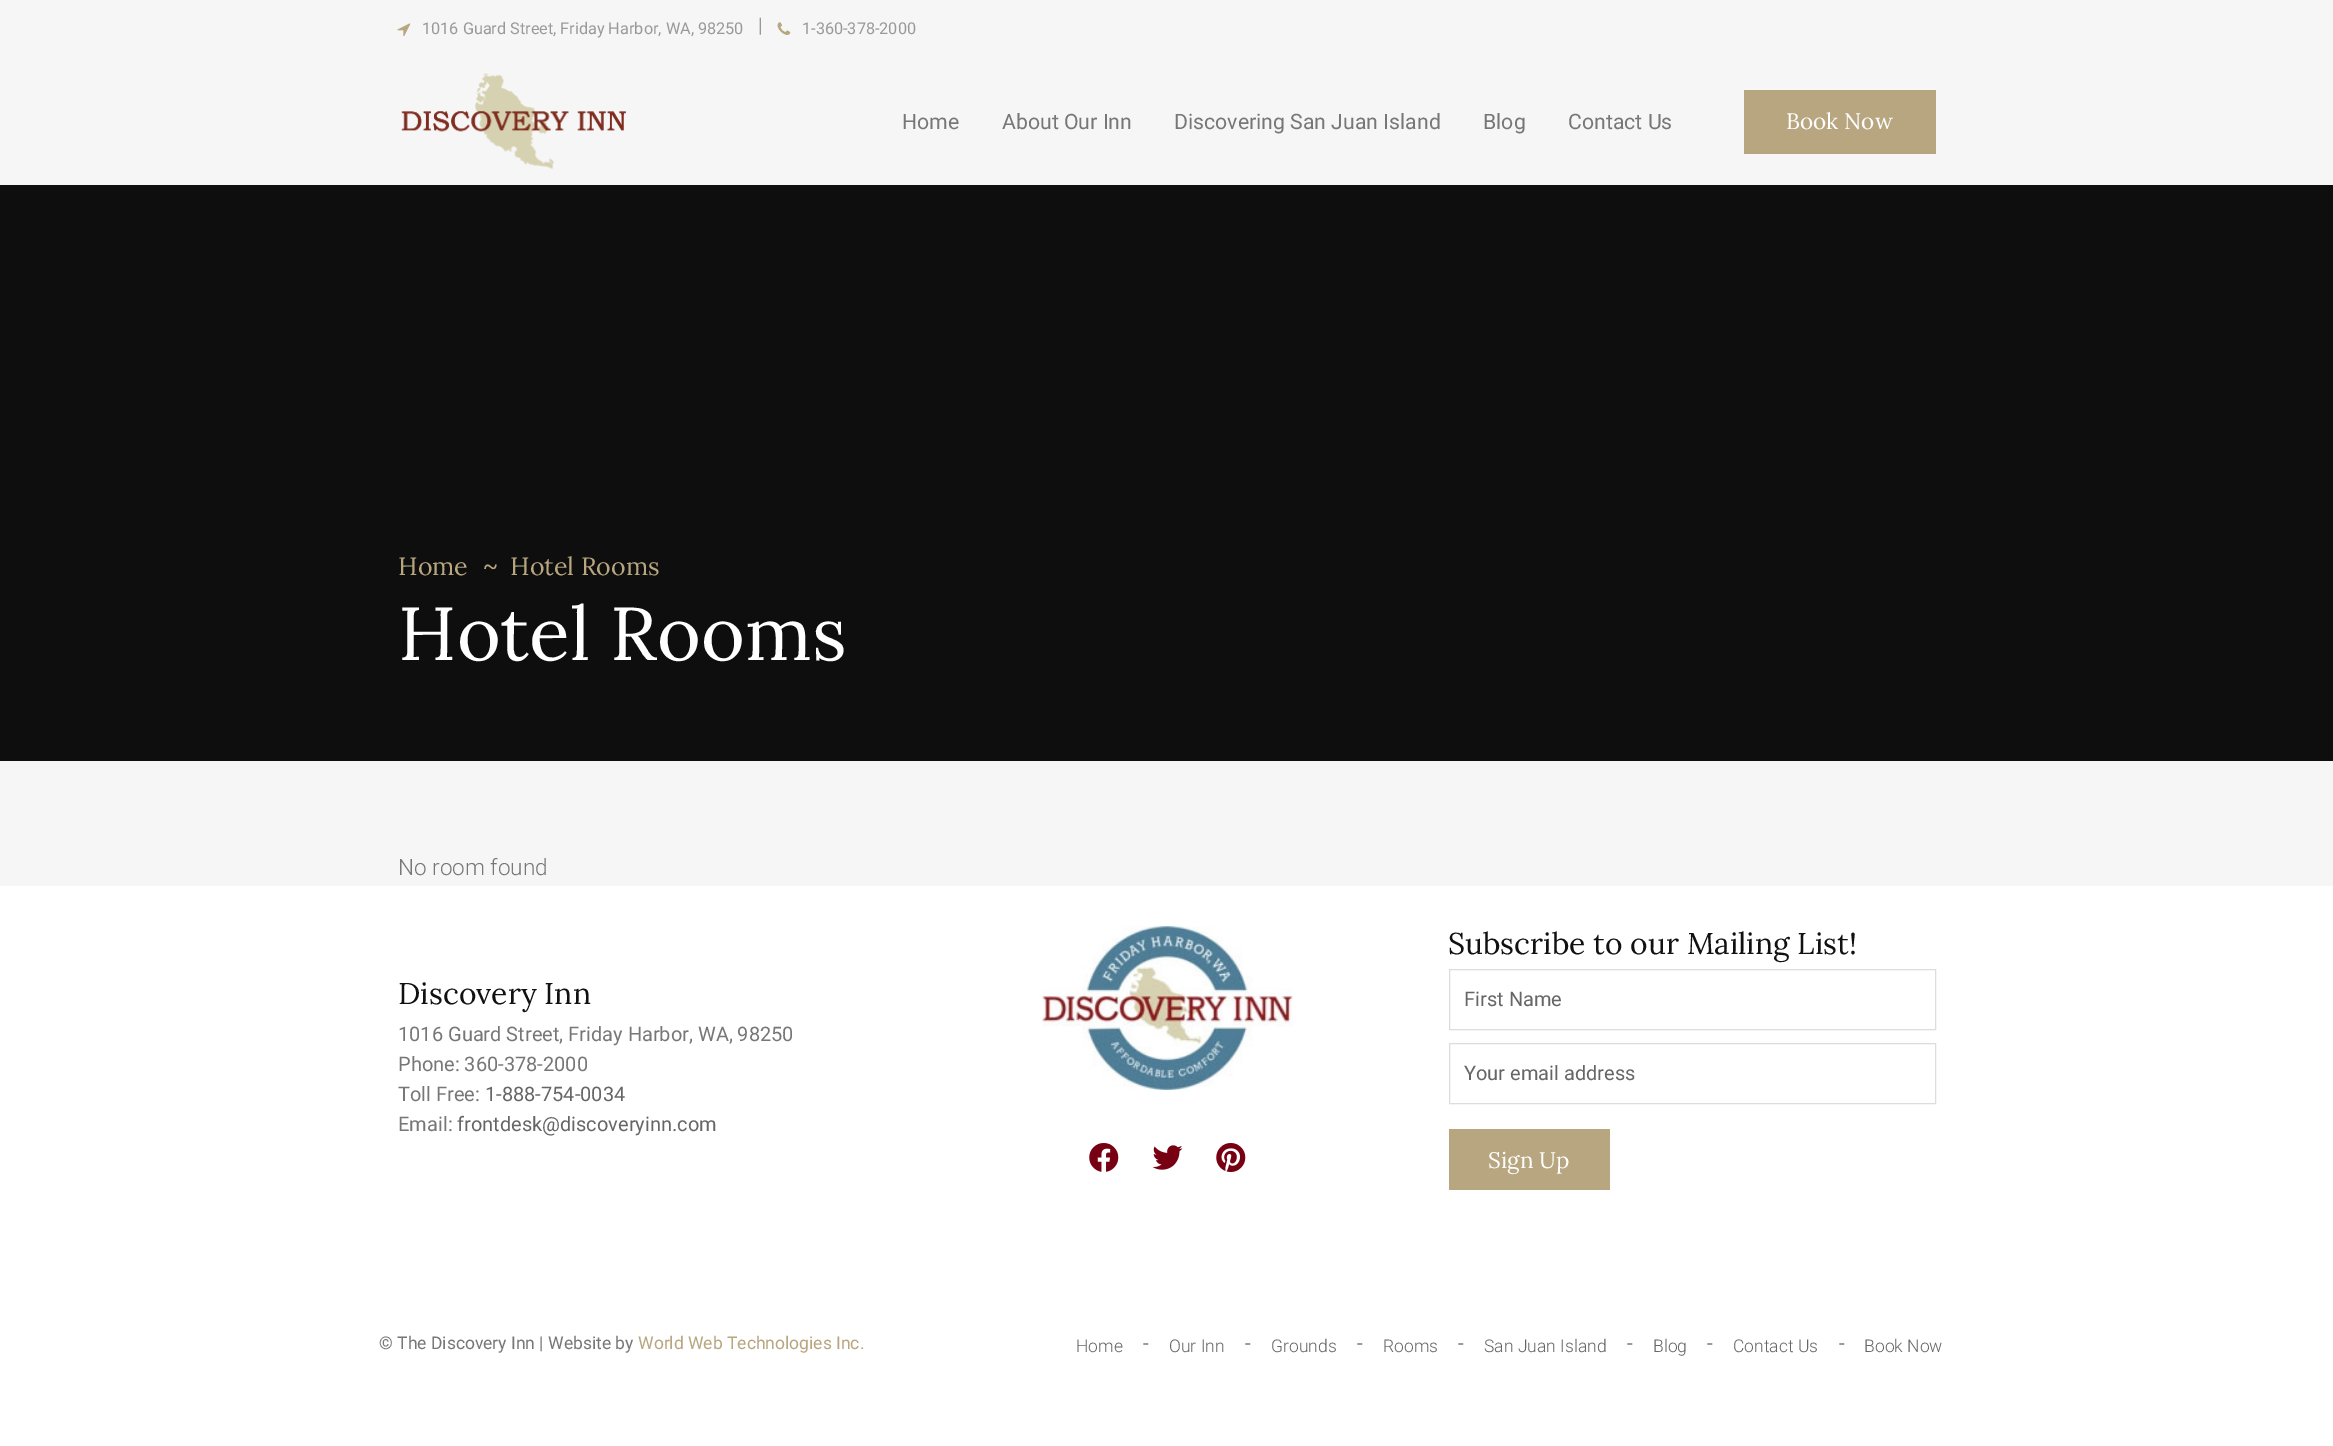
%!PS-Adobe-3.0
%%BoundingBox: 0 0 2333 1446
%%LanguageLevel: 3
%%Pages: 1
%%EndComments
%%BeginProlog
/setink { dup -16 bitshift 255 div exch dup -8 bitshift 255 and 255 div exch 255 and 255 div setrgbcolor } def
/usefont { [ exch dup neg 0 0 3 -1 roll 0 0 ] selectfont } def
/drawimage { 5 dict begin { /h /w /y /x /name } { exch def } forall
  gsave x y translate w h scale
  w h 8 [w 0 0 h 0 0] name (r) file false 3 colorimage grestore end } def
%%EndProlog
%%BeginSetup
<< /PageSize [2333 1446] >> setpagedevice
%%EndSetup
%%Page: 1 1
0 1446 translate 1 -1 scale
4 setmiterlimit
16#F6F6F6 setink
0 0 2333 1446 rectfill
(img1.raw) 397 23 14 14 drawimage
/Roboto-Regular 16.25 usefont
16#999999 setink
422 34 moveto (1016 Guard Street, Friday Harbor, WA, 98250) show
/Roboto-Light 20 usefont
16#777777 setink
758 32 moveto (|) show
(img2.raw) 777 22 14 13 drawimage
/Roboto-Regular 16.25 usefont
16#999999 setink
802 34 moveto (1-360-378-2000) show
(img3.raw) 401 73 225 96 drawimage
/Roboto-Regular 21.25 usefont
16#777777 setink
[
    [(Home) 902 129]
    [(About Our Inn) 1002 129]
    [(Discovering San Juan Island) 1174 129]
    [(Blog) 1483 129]
    [(Contact Us) 1568 129]
] { aload pop moveto show } forall
16#B8A680 setink
1744 90 192 64 rectfill
/Lora-Regular 22.5 usefont
16#FFFFFF setink
1786 129 moveto (Book Now) show
16#0E0E0E setink
0 185 2333 576 rectfill
/Lora-Regular 25 usefont
16#B8A680 setink
398 575 moveto (Home) show
/LiberationSerif-Bold 25 usefont
484 575 moveto (~) show
/Lora-Regular 25 usefont
510 575 moveto (Hotel Rooms) show
/Lora-Regular 75 usefont
16#FFFFFF setink
398 660 moveto (Hotel Rooms) show
/Roboto-Light 22.5 usefont
16#777777 setink
398 875 moveto (No room found) show
16#FFFFFF setink
0 886 2333 560 rectfill
/Lora-Regular 30 usefont
16#111111 setink
398 1004 moveto (Discovery Inn) show
/Roboto-Regular 20 usefont
16#777777 setink
[
    [(1016 Guard Street, Friday Harbor, WA, 98250) 398 1041]
    [(Phone: 360-378-2000) 398 1071]
    [(Toll Free:) 398 1101]
] { aload pop moveto show } forall
16#666666 setink
485 1101 moveto (1-888-754-0034) show
16#777777 setink
398 1131 moveto (Email:) show
16#666666 setink
457 1131 moveto (frontdesk@discoveryinn.com) show
(img4.raw) 1042 926 251 164 drawimage
(img5.raw) 1089 1143 30 29 drawimage
(img6.raw) 1152 1145 31 25 drawimage
(img7.raw) 1216 1143 30 29 drawimage
/Lora-Regular 30 usefont
16#111111 setink
1448 954 moveto (Subscribe to our Mailing List!) show
16#DDDDDD setink
1449.5 969.5 486 60 rectstroke
/Roboto-Regular 20 usefont
16#666666 setink
1464 1006 moveto (First Name) show
16#DDDDDD setink
1449.5 1043.5 486 60 rectstroke
16#666666 setink
1464 1080 moveto (Your email address) show
16#B8A680 setink
1449 1129 161 61 rectfill
/Lora-Regular 22.5 usefont
16#FFFFFF setink
1488 1168 moveto (Sign Up) show
/Roboto-Regular 17.5 usefont
16#777777 setink
379 1349 moveto (© The Discovery Inn | Website by) show
16#B8A680 setink
638 1349 moveto (World Web Technologies Inc.) show
/Roboto-Light 17.5 usefont
16#666666 setink
1076 1352 moveto (Home) show
/Roboto-Regular 20 usefont
16#777777 setink
1143 1350 moveto (-) show
/Roboto-Light 17.5 usefont
16#666666 setink
1169 1352 moveto (Our Inn) show
/Roboto-Regular 20 usefont
16#777777 setink
1245 1350 moveto (-) show
/Roboto-Light 17.5 usefont
16#666666 setink
1271 1352 moveto (Grounds) show
/Roboto-Regular 20 usefont
16#777777 setink
1357 1350 moveto (-) show
/Roboto-Light 17.5 usefont
16#666666 setink
1383 1352 moveto (Rooms) show
/Roboto-Regular 20 usefont
16#777777 setink
1458 1350 moveto (-) show
/Roboto-Light 17.5 usefont
16#666666 setink
1484 1352 moveto (San Juan Island) show
/Roboto-Regular 20 usefont
16#777777 setink
1627 1350 moveto (-) show
/Roboto-Light 17.5 usefont
16#666666 setink
1653 1352 moveto (Blog) show
/Roboto-Regular 20 usefont
16#777777 setink
1707 1350 moveto (-) show
/Roboto-Light 17.5 usefont
16#666666 setink
1733 1352 moveto (Contact Us) show
/Roboto-Regular 20 usefont
16#777777 setink
1839 1350 moveto (-) show
/Roboto-Light 17.5 usefont
16#666666 setink
1864 1352 moveto (Book Now) show
showpage
%%EOF
